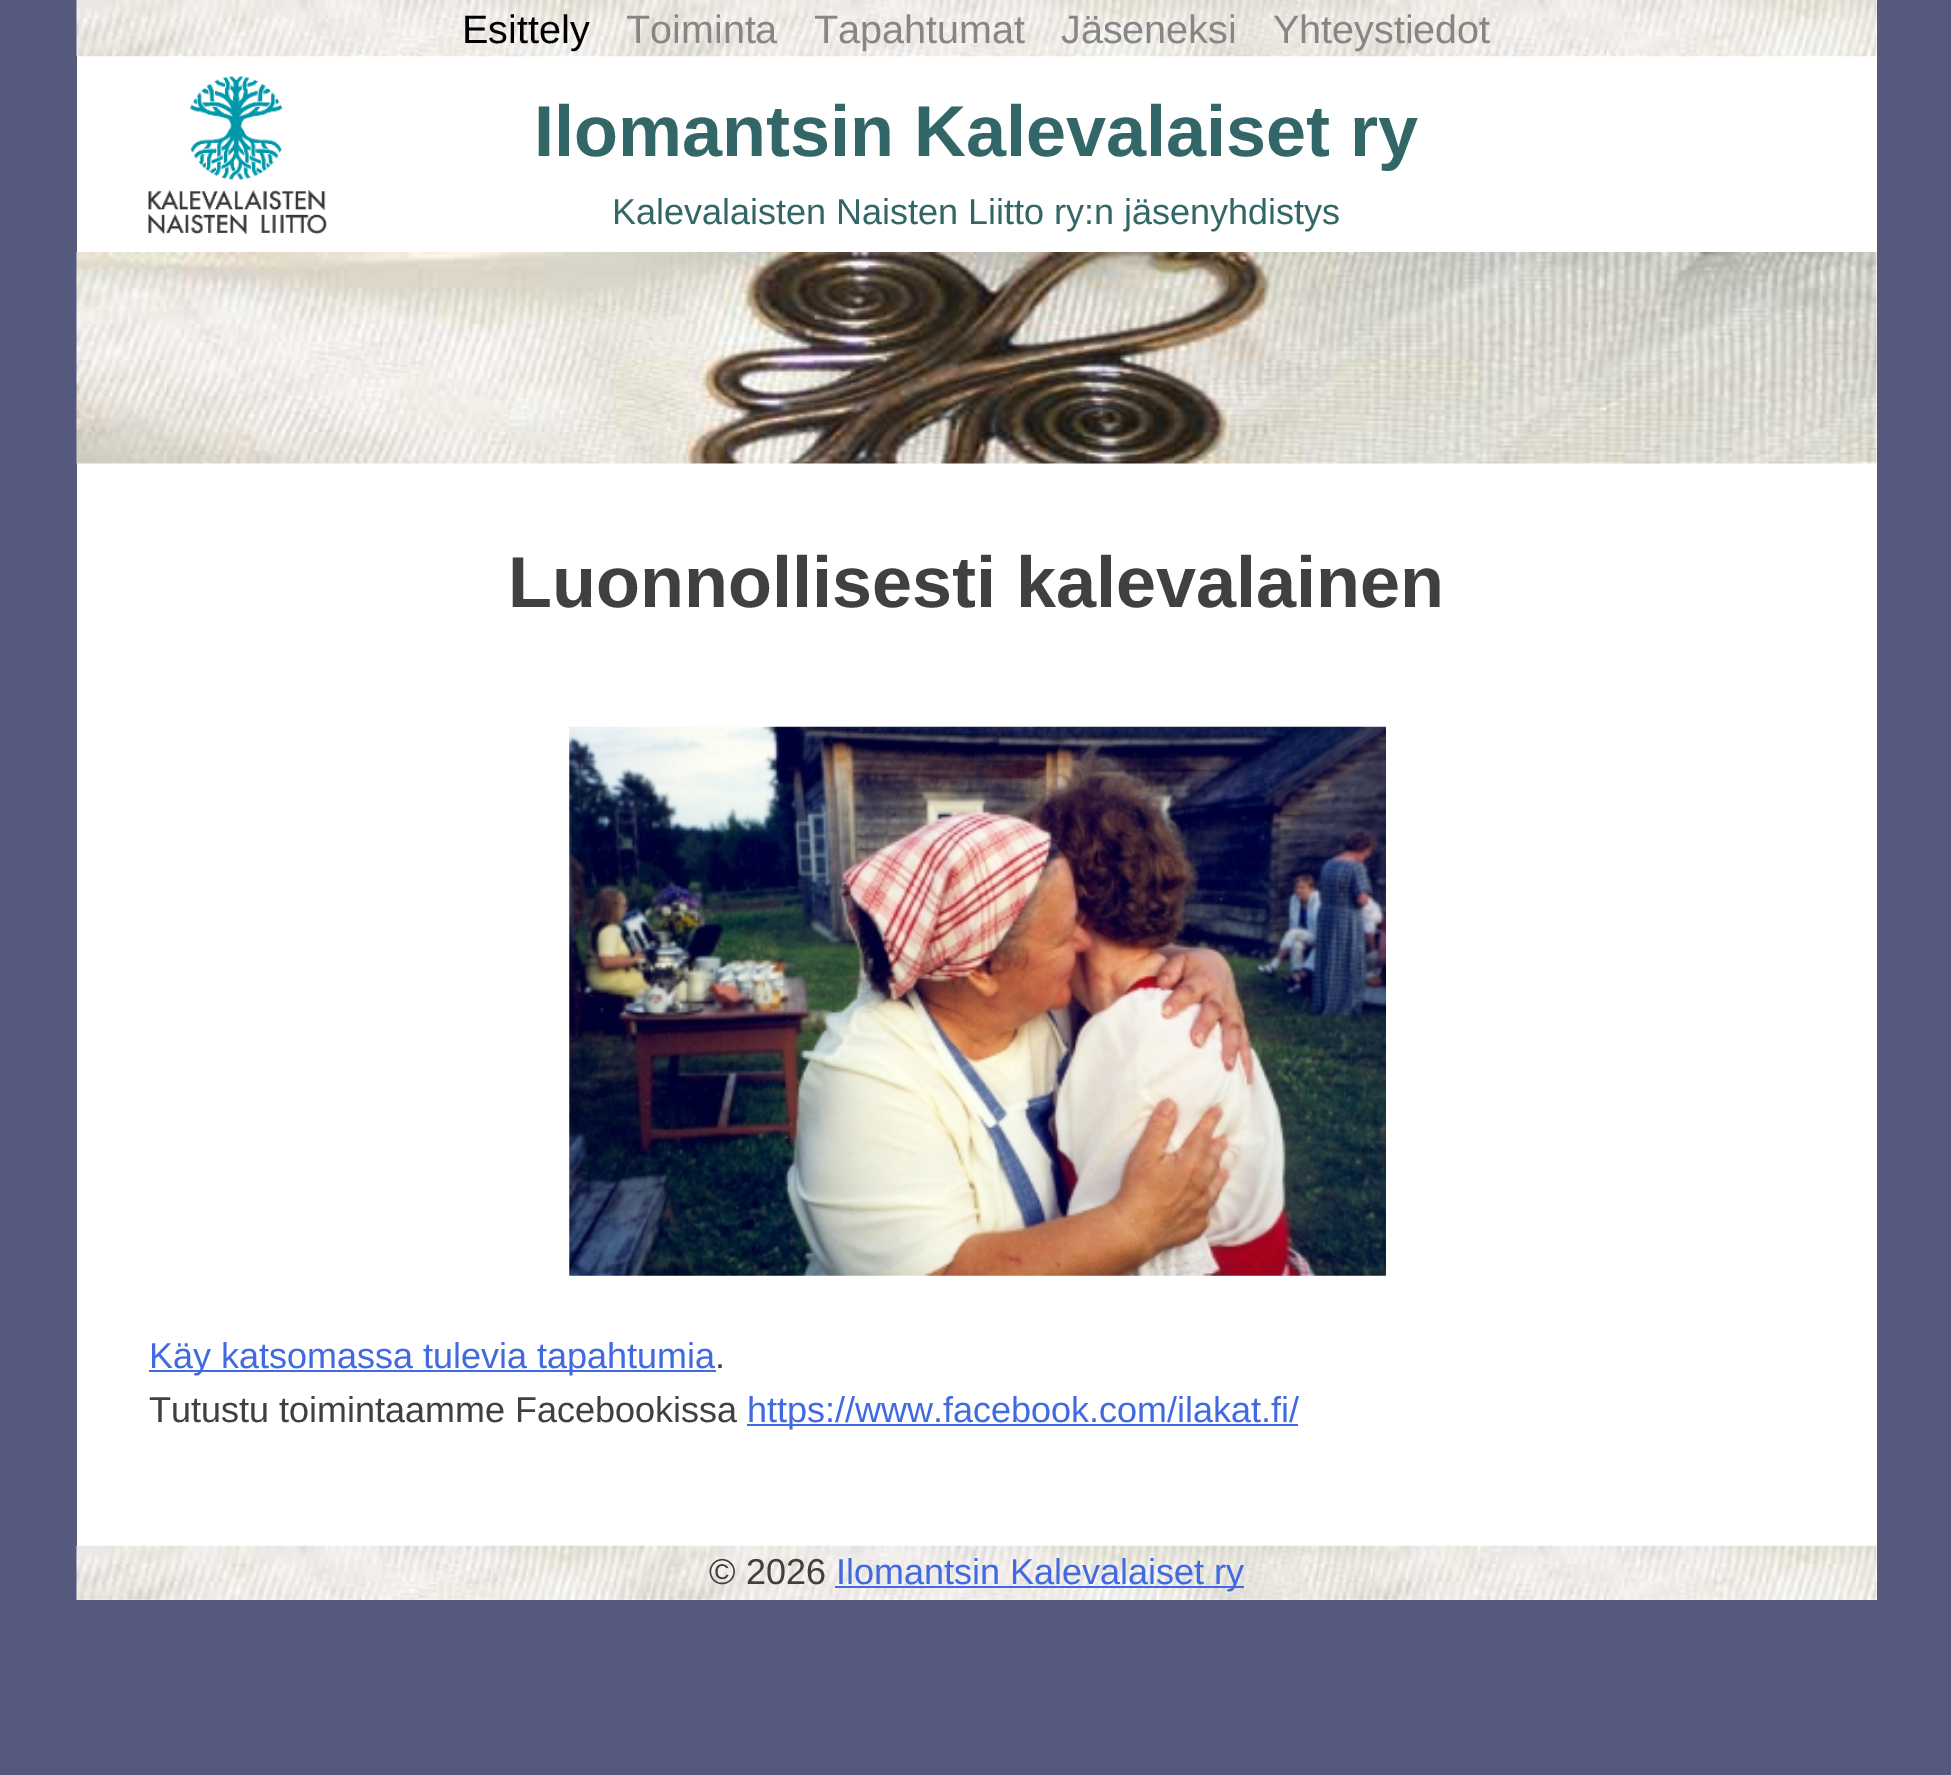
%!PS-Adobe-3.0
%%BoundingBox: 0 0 1951 1775
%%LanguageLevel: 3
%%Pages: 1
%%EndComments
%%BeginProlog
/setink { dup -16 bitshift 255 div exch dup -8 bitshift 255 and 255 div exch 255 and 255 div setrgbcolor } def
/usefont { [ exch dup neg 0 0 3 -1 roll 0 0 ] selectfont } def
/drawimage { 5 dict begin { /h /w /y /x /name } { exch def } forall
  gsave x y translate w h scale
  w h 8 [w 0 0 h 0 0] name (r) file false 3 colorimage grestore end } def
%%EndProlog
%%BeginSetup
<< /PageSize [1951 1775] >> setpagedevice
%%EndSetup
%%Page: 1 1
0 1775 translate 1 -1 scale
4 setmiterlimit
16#55597E setink
0 0 1951 1775 rectfill
16#FFFFFF setink
77 0 1800 1600 rectfill
(img1.raw) 76 0 1801 57 drawimage
/LiberationSans-Regular 39.5 usefont
16#000000 setink
462 43 moveto (Esittely) show
16#888585 setink
[
    [(Toiminta) 626 43]
    [(Tapahtumat) 814 43]
    [(Jäseneksi) 1061 43]
    [(Yhteystiedot) 1273 43]
] { aload pop moveto show } forall
(img2.raw) 148 76 179 158 drawimage
/LiberationSans-Bold 72 usefont
16#336666 setink
534 156 moveto (Ilomantsin Kalevalaiset ry) show
/LiberationSans-Regular 36 usefont
612 224 moveto (Kalevalaisten Naisten Liitto ry:n jäsenyhdistys) show
(img3.raw) 76 252 1801 212 drawimage
/LiberationSans-Bold 72 usefont
16#404040 setink
508 607 moveto (Luonnollisesti kalevalainen) show
(img4.raw) 569 726 817 550 drawimage
16#4169E1 setink
149 1370 567 2 rectfill
/LiberationSans-Regular 36 usefont
149 1368 moveto (Käy katsomassa tulevia tapahtumia) show
16#404040 setink
715 1368 moveto (.) show
149 1422 moveto (Tutustu toimintaamme Facebookissa) show
16#4169E1 setink
747 1424 551 2 rectfill
747 1422 moveto (https://www.facebook.com/ilakat.fi/) show
(img5.raw) 76 1545 1801 55 drawimage
16#404040 setink
709 1584 moveto (© 2026) show
16#4169E1 setink
835 1586 409 2 rectfill
836 1584 moveto (Ilomantsin Kalevalaiset ry) show
showpage
%%EOF
